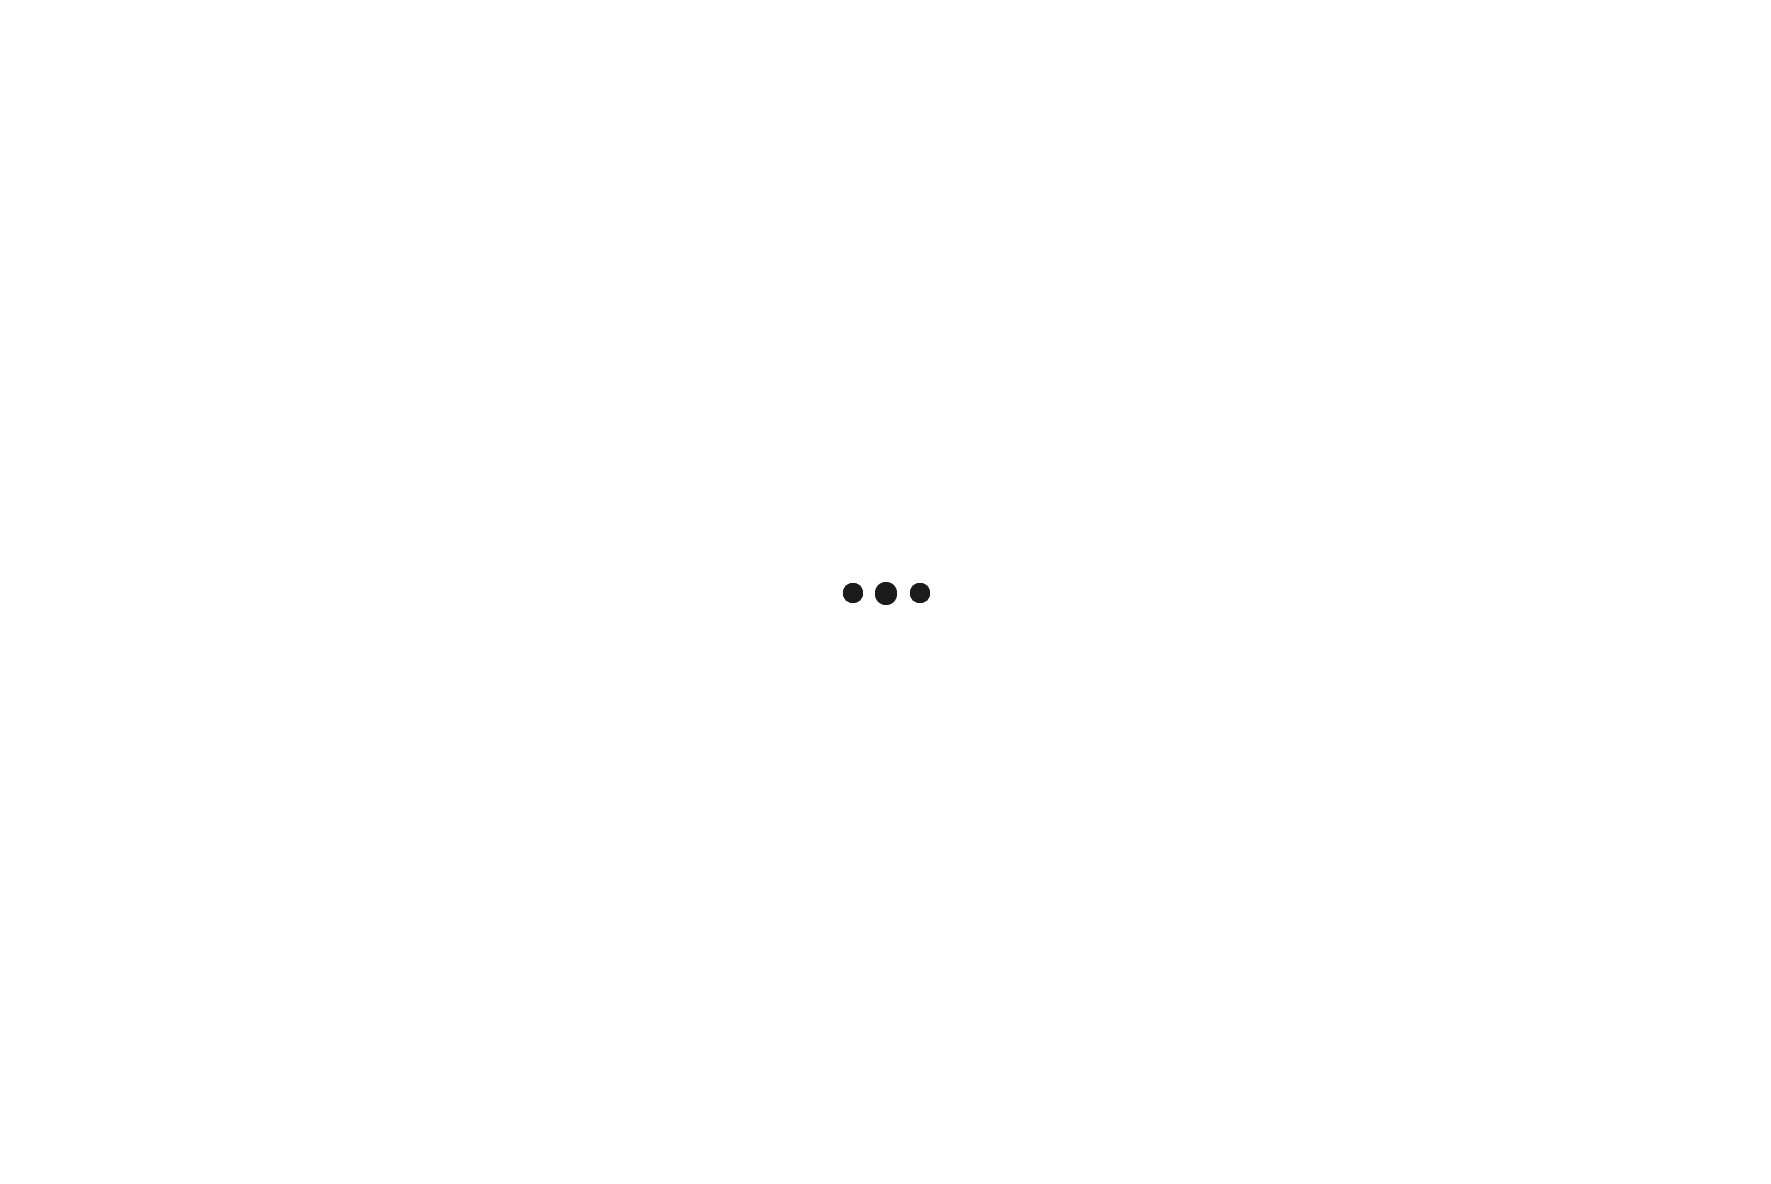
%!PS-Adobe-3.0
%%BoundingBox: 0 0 1771 1184
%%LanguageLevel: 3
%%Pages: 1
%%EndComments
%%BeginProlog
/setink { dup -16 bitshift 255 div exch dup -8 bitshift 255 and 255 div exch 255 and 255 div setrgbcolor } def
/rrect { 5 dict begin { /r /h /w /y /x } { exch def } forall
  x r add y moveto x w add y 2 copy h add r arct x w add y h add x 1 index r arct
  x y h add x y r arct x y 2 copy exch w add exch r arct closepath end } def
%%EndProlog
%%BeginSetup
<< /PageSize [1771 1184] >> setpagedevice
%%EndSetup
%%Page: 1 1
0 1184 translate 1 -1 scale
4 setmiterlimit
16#FFFFFF setink
0 0 1771 1184 rectfill
gsave 909 582 moveto 931 582 lineto 931 604 lineto 909 604 lineto closepath clip newpath 920 593 translate 11 11 scale
<< /ShadingType 3 /ColorSpace /DeviceRGB /Coords [0 0 0 0 0 1] /Extend [true true] /Function << /FunctionType 3 /Domain [0 1] /Functions [<< /FunctionType 2 /Domain [0 1] /C0 [0.098 0.106 0.114] /C1 [0.098 0.106 0.114] /N 1 >> << /FunctionType 2 /Domain [0 1] /C0 [0.098 0.106 0.114] /C1 [1 1 1] /N 1 >>] /Bounds [0.9] /Encode [0 1 0 1] >> >> shfill grestore
gsave 842 582 moveto 864 582 lineto 864 604 lineto 842 604 lineto closepath clip newpath 853 593 translate 11 11 scale
<< /ShadingType 3 /ColorSpace /DeviceRGB /Coords [0 0 0 0 0 1] /Extend [true true] /Function << /FunctionType 3 /Domain [0 1] /Functions [<< /FunctionType 2 /Domain [0 1] /C0 [0.098 0.106 0.114] /C1 [0.098 0.106 0.114] /N 1 >> << /FunctionType 2 /Domain [0 1] /C0 [0.098 0.106 0.114] /C1 [1 1 1] /N 1 >>] /Bounds [0.9] /Encode [0 1 0 1] >> >> shfill grestore
16#191B1D setink
875 582 22 23 11 rrect fill
showpage
%%EOF
